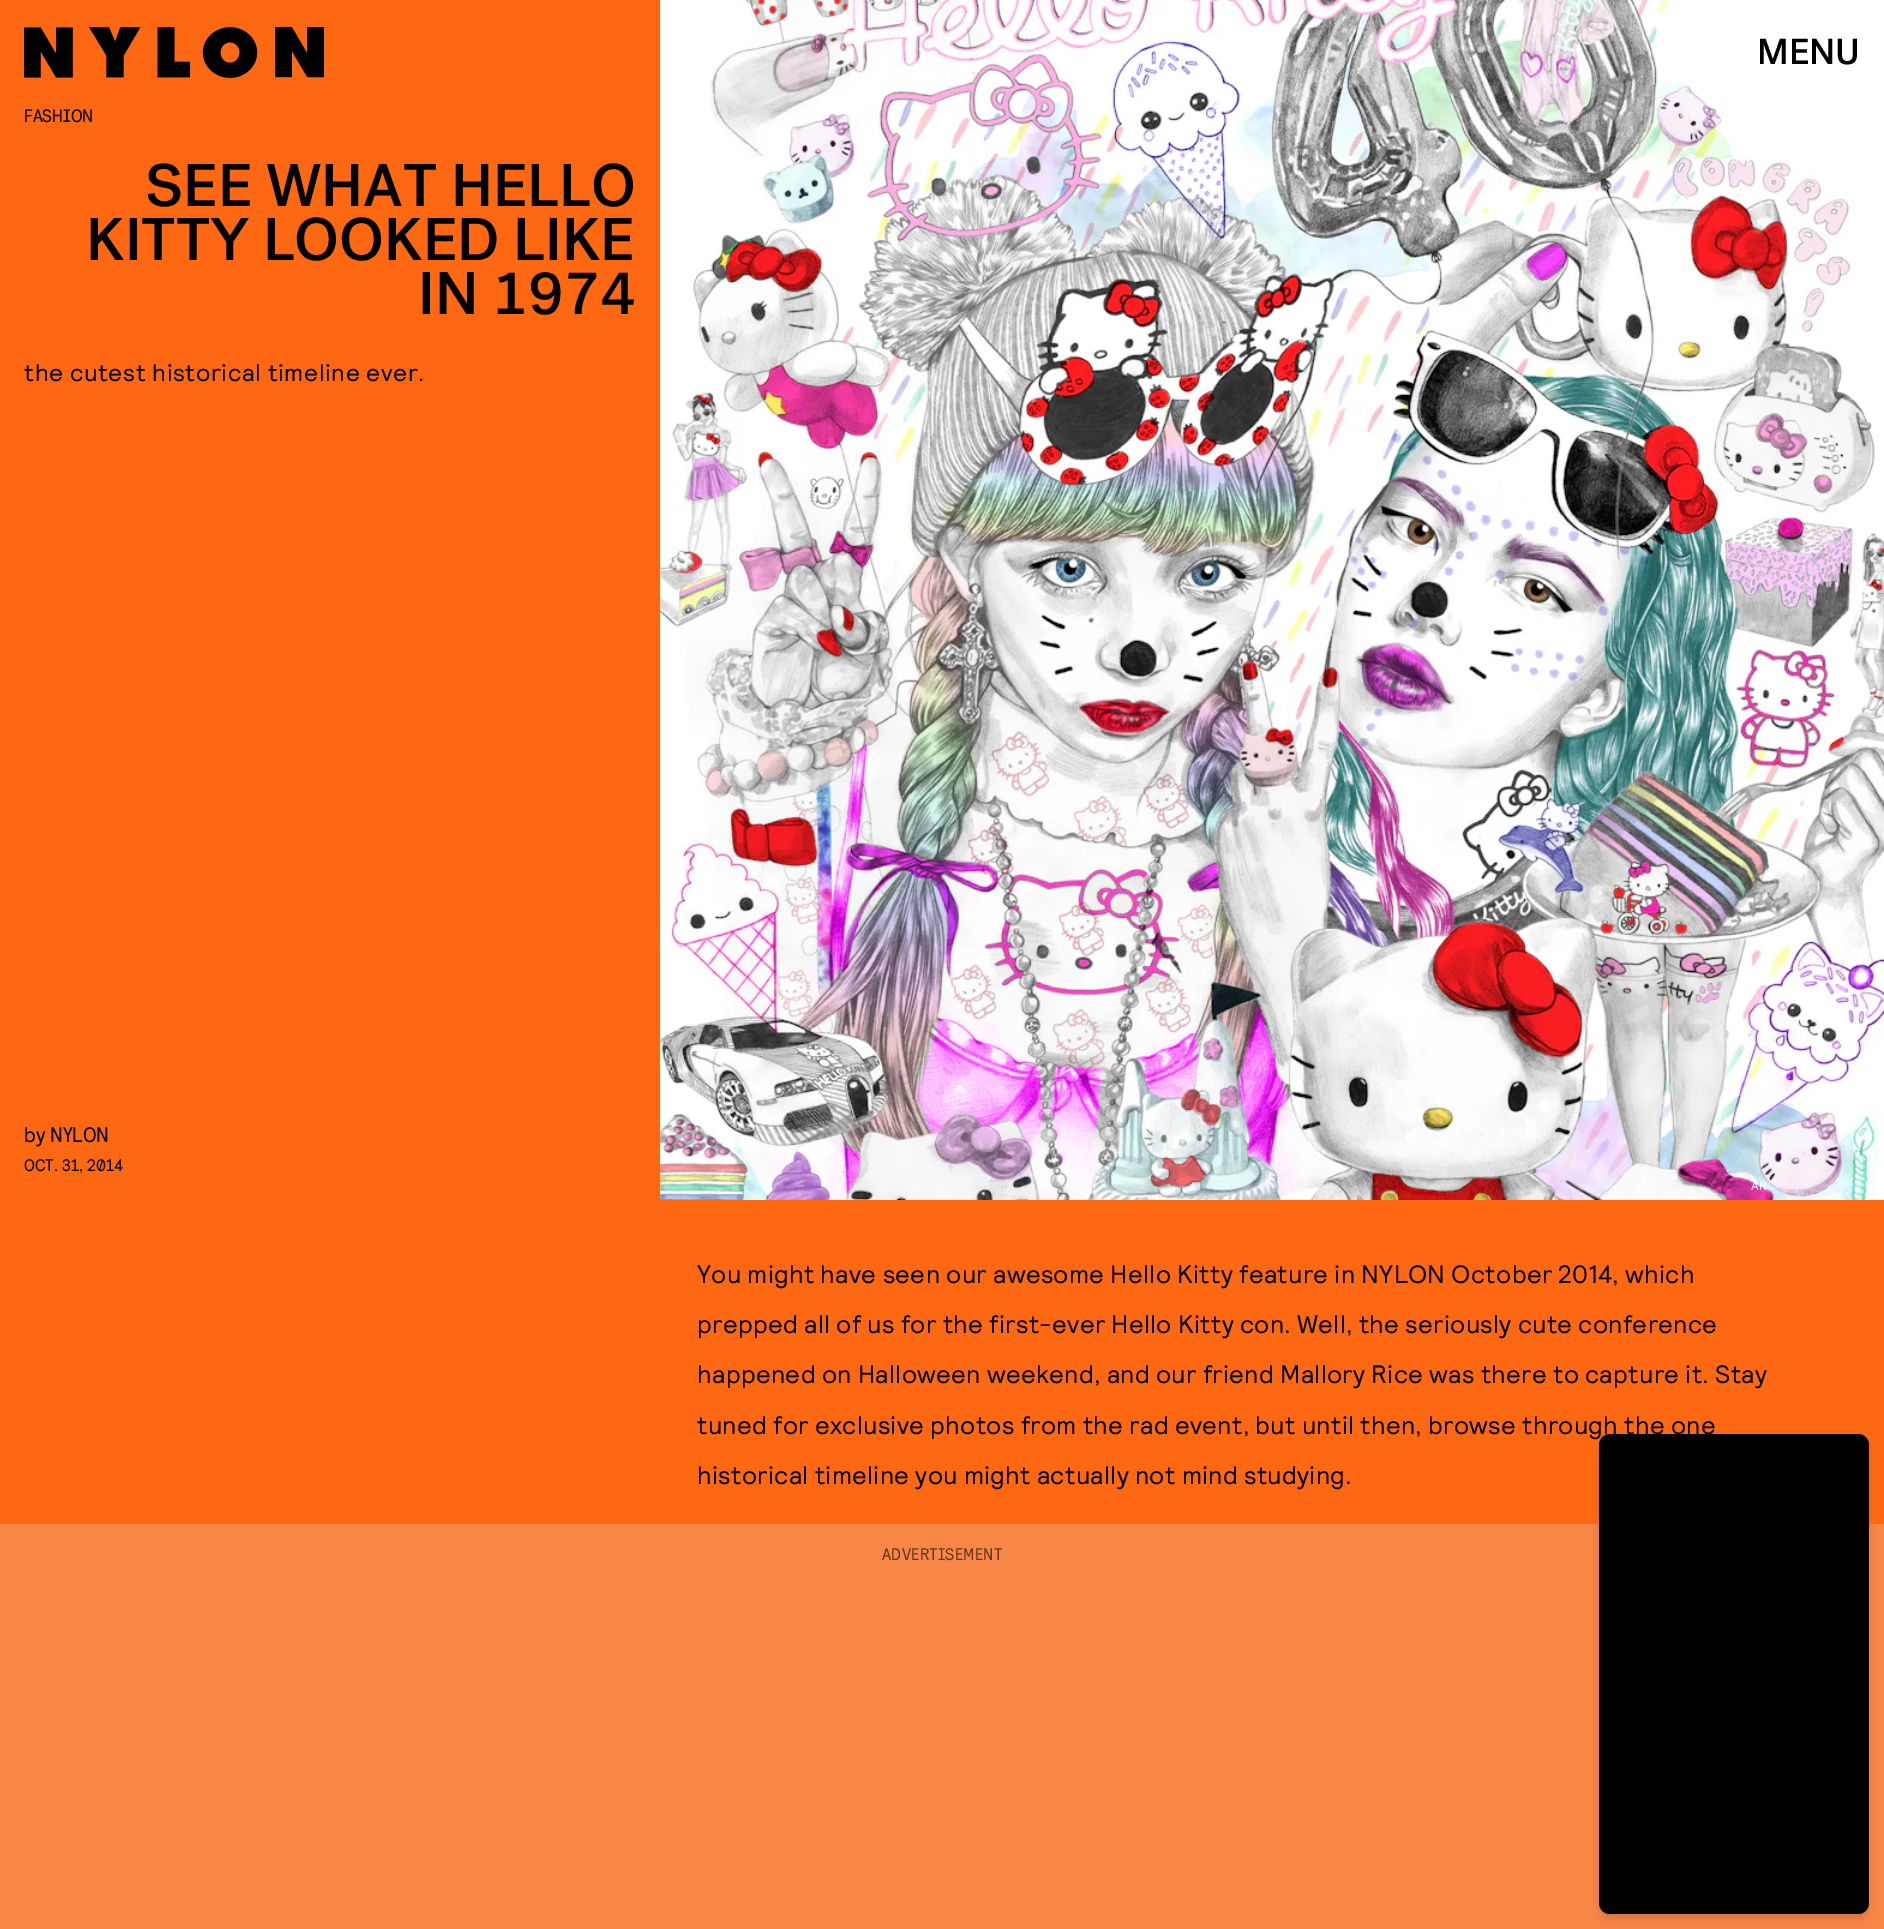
%!PS-Adobe-3.0
%%BoundingBox: 0 0 1884 1929
%%LanguageLevel: 3
%%Pages: 1
%%EndComments
%%BeginProlog
/setink { dup -16 bitshift 255 div exch dup -8 bitshift 255 and 255 div exch 255 and 255 div setrgbcolor } def
/usefont { [ exch dup neg 0 0 3 -1 roll 0 0 ] selectfont } def
/setalpha { dup .setfillconstantalpha .setstrokeconstantalpha } def
/rrect { 5 dict begin { /r /h /w /y /x } { exch def } forall
  x r add y moveto x w add y 2 copy h add r arct x w add y h add x 1 index r arct
  x y h add x y r arct x y 2 copy exch w add exch r arct closepath end } def
/softshadow { 12 dict begin { /a /b /q /h /w /y /x } { exch def } forall gsave /was 0 def
  9 -2 -9 { dup b mul 4 div /e exch def 1 sub .425 mul 2.718 exch exp 1 add a .99 .min exch div /now exch def
    1 1 now sub 1 was sub div sub setalpha /was now def
    w h .min e 2 mul add 0 gt { x e sub y e sub w e 2 mul add h e 2 mul add
      q e add b .6 mul add w h .min 2 div e add .min 0 .max rrect fill } if } for grestore end } def
/drawimage { 5 dict begin { /h /w /y /x /name } { exch def } forall
  gsave x y translate w h scale
  w h 8 [w 0 0 h 0 0] name (r) file false 3 colorimage grestore end } def
%%EndProlog
%%BeginSetup
<< /PageSize [1884 1929] /PageUsesTransparency true >> setpagedevice
%%EndSetup
%%Page: 1 1
0 .pushpdf14devicefilter
0 1929 translate 1 -1 scale
4 setmiterlimit
16#FF6813 setink
0 0 1884 1929 rectfill
(img1.raw) 24 26 300 52 drawimage
(img2.raw) 660 0 1224 1200 drawimage
/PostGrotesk-Medium 36 usefont
16#000000 setink
1757 64 moveto (MENU) show
/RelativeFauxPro-Regular 18 usefont
24 122 moveto (FASHION) show
/PostGrotesk-Medium 60 usefont
[
    [(SEE WHAT HELLO) 145 206]
    [(KITTY LOOKED LIKE) 86 260]
    [(IN 1974) 418 314]
] { aload pop moveto show } forall
/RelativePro-Regular 24 usefont
24 381 moveto 0.6 0 (the cutest historical timeline ever.) ashow
/RelativeFauxPro-Regular 21 usefont
24 1142 moveto (by NYLON) show
/RelativeFauxPro-Regular 16.75 usefont
24 1171 moveto (OCT. 31, 2014) show
/RelativePro-Regular 12 usefont
16#FFFFFF setink
1751 1190 moveto (AR) show
/RelativePro-Regular 25.2 usefont
16#000000 setink
697 1283 moveto 0.3 0 (You might have seen our awesome Hello Kitty feature in NYLON October 2014, which) ashow
697 1333 moveto 0.3 0 (prepped all of us for the first-ever Hello Kitty con. Well, the seriously cute conference) ashow
697 1383 moveto 0.3 0 (happened on Halloween weekend, and our friend Mallory Rice was there to capture it. Stay) ashow
697 1434 moveto 0.3 0 (tuned for exclusive photos from the rad event, but until then, browse through the one) ashow
697 1484 moveto 0.3 0 (historical timeline you might actually not mind studying.) ashow
16#F88647 setink
0 1524 1884 405 rectfill
/RelativeFauxPro-Regular 16.75 usefont
16#63361C setink
882 1560 moveto 0.3 0 (ADVERTISEMENT) ashow
16#000000 setink
1602 1440 264 474 8 3 0.1 softshadow
1601 1442 267 477 9 4.5 0.1 softshadow
1599 1434 270 480 11 rrect fill
.poppdf14devicefilter showpage
%%EOF
